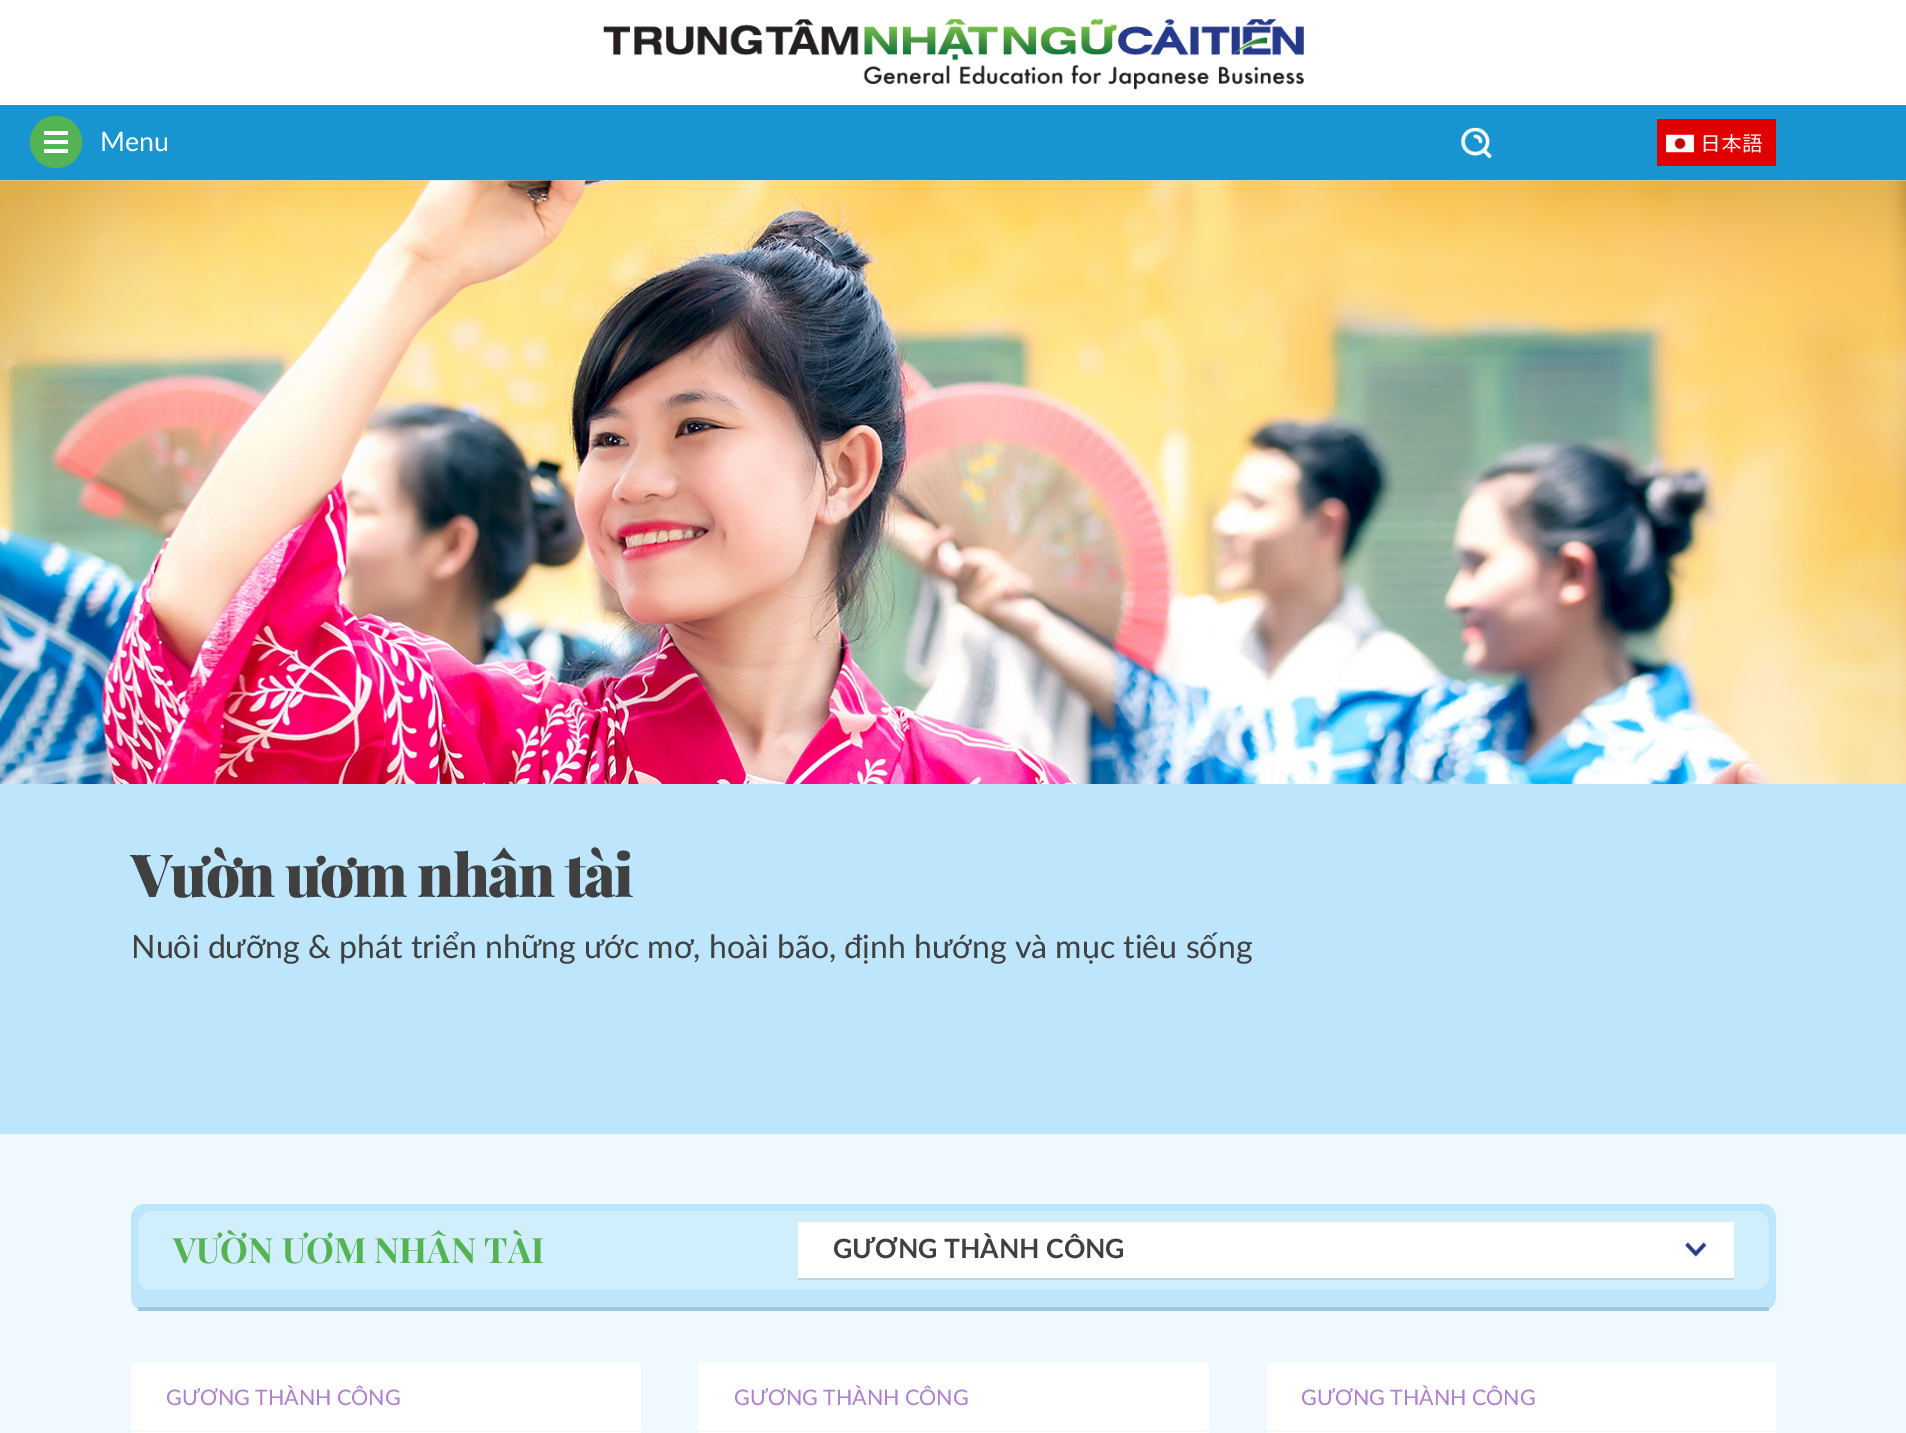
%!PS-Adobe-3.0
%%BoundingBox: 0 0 1906 1433
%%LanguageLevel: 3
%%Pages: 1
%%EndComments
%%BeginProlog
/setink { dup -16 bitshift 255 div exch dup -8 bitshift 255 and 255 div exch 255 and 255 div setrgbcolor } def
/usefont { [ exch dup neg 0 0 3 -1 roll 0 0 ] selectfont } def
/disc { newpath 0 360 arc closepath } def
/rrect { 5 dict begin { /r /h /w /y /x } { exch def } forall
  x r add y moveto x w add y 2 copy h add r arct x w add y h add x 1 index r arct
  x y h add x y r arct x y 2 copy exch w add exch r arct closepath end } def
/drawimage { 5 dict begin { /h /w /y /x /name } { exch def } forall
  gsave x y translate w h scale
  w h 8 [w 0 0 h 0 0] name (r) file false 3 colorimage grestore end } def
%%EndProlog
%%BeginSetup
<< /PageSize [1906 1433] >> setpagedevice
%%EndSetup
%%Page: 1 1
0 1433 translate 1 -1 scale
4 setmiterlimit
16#BDE6FC setink
0 0 1906 1433 rectfill
16#FFFFFF setink
0 0 1906 105 rectfill
(img1.raw) 603 19 701 71 drawimage
16#1895D0 setink
0 105 1906 75 rectfill
16#54B454 setink
56 142 26 disc fill
[
    [44 131 24 4 16#FFFFFF]
    [44 140 24 4 16#FFFFFF]
    [44 149 24 4 16#FFFFFF]
] { aload pop setink rectfill } forall
/lato-Regular 26.25 usefont
100 151 moveto (Menu) show
(img2.raw) 1461 127 31 32 drawimage
16#E00000 setink
1657 119 119 47 rectfill
(img3.raw) 1666 134 28 19 drawimage
/IPAPGothic-Regular 21 usefont
16#FFFFFF setink
1700 151 moveto (日本語) show
(img4.raw) 0 180 1906 604 drawimage
/PlayfairDisplay-Black 59.5 usefont
16#404041 setink
131 897 moveto -1.75 0 (Vườn ươm nhân tài) ashow
/lato-Regular 31.5 usefont
131 958 moveto (Nuôi dưỡng & phát triển những ước mơ, hoài bão, định hướng và mục tiêu sống) show
16#EFF9FE setink
0 1134 1906 299 rectfill
16#BDE6FC setink
131 1204 1645 107 14 rrect fill
16#9BC9E1 setink
138 1307 1631 4 rectfill
16#D1EEFD setink
138 1211 1631 79 14 rrect fill
/PlayfairDisplay-Bold 35 usefont
16#54B454 setink
173 1263 moveto (VƯỜN ƯƠM NHÂN TÀI) show
16#FFFFFF setink
798 1222 936 56 rectfill
(img5.raw) 1685 1242 22 15 drawimage
16#BCD6E3 setink
798 1278 936 2 rectfill
/lato-Bold 26.25 usefont
16#404041 setink
833 1258 moveto (GƯƠNG THÀNH CÔNG) show
16#FFFFFF setink
131 1363 510 70 rectfill
/lato-Regular 21 usefont
16#B080D0 setink
166 1405 moveto (GƯƠNG THÀNH CÔNG) show
16#EFF9FE setink
131 1430 510 2 rectfill
16#FFFFFF setink
698 1363 511 70 rectfill
16#B080D0 setink
734 1405 moveto (GƯƠNG THÀNH CÔNG) show
16#EFF9FE setink
698 1430 511 2 rectfill
16#FFFFFF setink
1267 1363 509 70 rectfill
16#B080D0 setink
1301 1405 moveto (GƯƠNG THÀNH CÔNG) show
16#EFF9FE setink
1267 1430 509 2 rectfill
showpage
%%EOF
